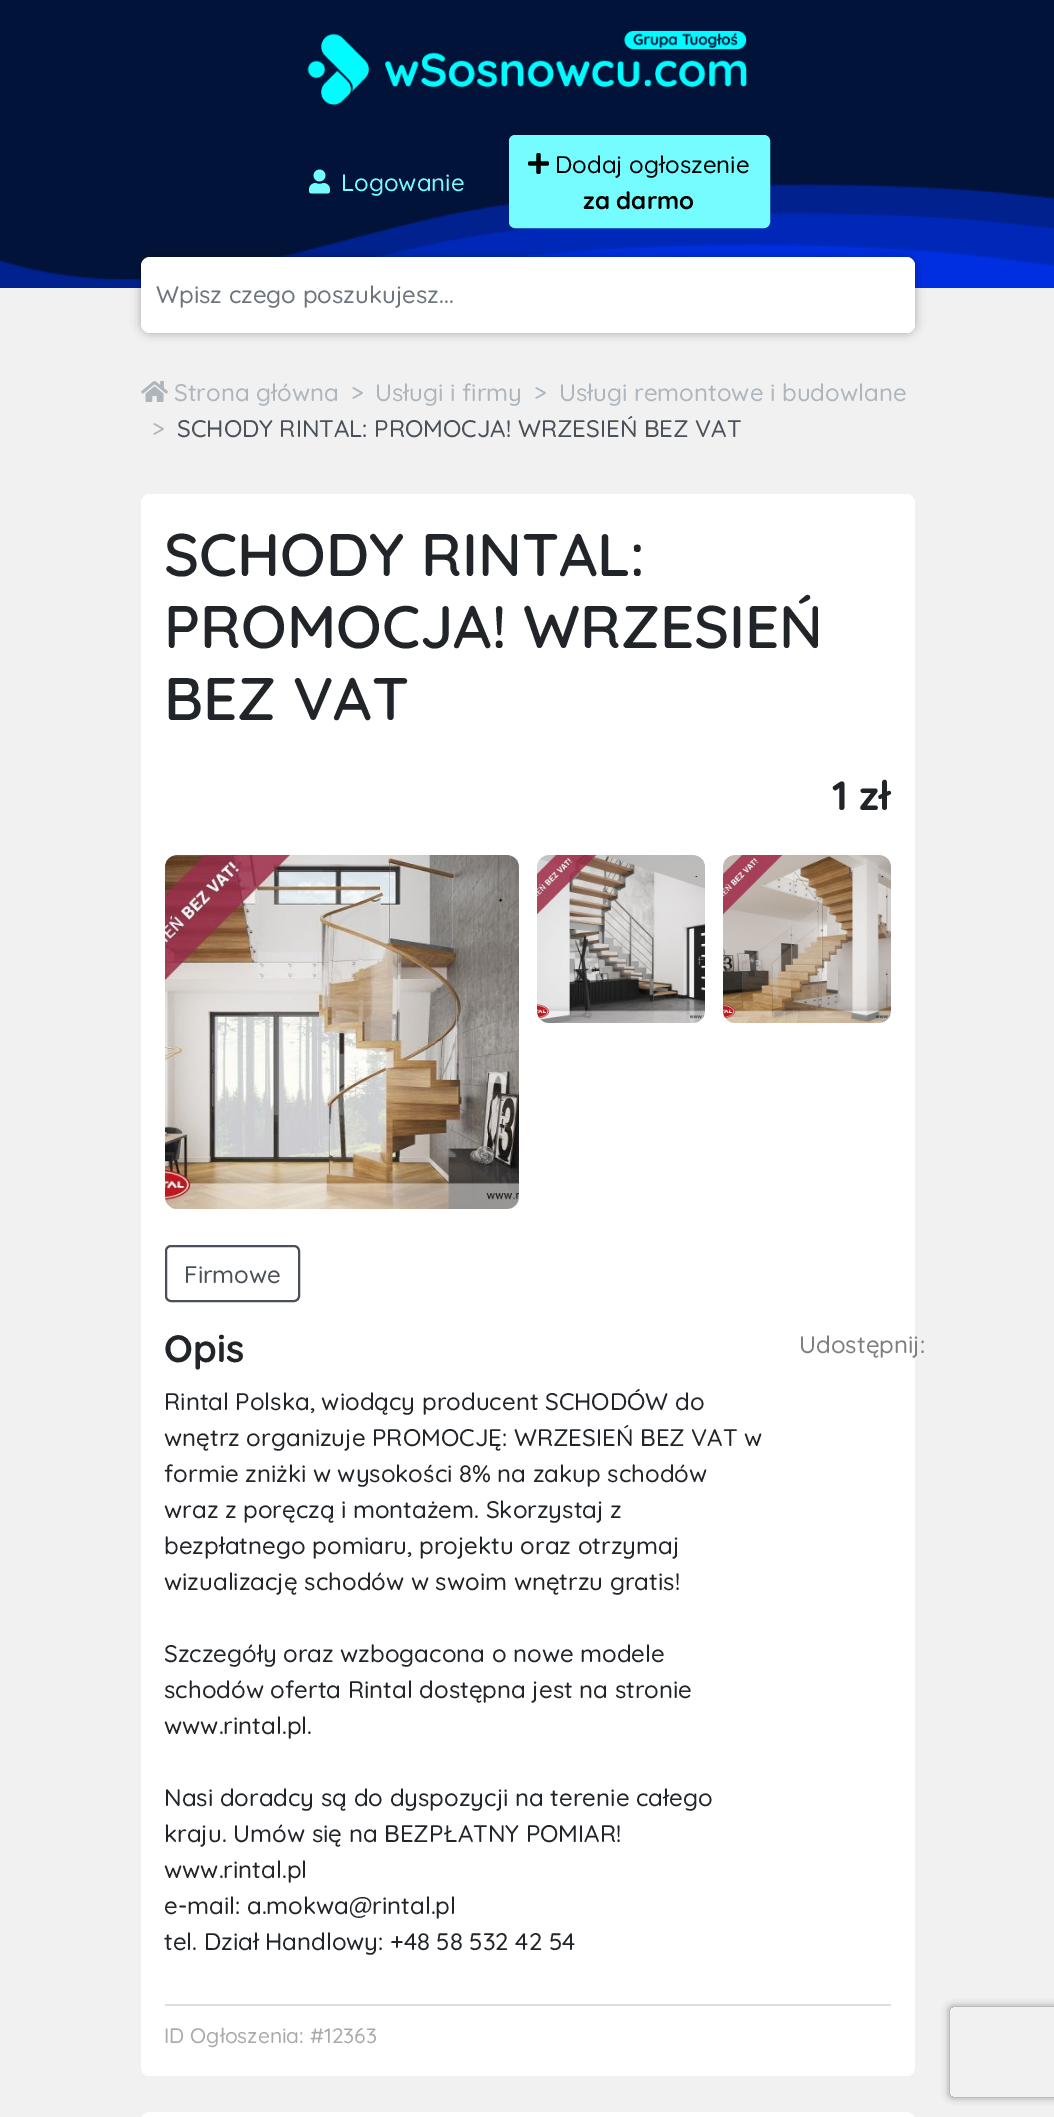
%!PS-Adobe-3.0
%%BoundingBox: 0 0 1054 2117
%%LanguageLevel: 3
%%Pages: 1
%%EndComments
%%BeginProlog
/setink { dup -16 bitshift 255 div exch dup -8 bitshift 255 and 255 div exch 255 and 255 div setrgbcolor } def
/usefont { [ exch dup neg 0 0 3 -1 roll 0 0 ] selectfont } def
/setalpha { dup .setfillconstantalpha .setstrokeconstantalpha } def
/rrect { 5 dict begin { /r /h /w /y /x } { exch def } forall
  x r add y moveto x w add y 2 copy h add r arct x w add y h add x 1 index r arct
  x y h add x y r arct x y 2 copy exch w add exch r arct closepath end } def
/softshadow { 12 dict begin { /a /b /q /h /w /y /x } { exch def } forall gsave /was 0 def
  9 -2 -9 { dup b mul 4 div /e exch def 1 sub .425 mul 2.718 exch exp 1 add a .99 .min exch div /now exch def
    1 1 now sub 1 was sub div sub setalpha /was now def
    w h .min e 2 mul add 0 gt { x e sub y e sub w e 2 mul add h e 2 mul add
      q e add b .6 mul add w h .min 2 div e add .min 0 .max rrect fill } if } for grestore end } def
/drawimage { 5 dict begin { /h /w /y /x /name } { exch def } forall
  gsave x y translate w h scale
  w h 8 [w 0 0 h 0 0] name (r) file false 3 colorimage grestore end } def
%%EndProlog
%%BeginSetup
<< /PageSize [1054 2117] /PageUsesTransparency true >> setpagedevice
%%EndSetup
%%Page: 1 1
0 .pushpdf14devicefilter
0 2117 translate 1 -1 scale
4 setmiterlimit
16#F1F1F1 setink
0 0 1054 2117 rectfill
16#021339 setink
0 0 1054 184 rectfill
(img1.raw) 0 184 1054 104 drawimage
(img2.raw) 307 30 440 75 drawimage
(img3.raw) 309 169 21 25 drawimage
/Quicksand-Medium 24 usefont
16#74FCFF setink
341 191 moveto (Logowanie) show
510 136 259 91 5 rrect gsave fill grestore
2 setlinewidth
stroke
(img4.raw) 528 153 21 21 drawimage
16#000000 setink
555 173 moveto (Dodaj ogłoszenie) show
/Quicksand-Bold 24 usefont
583 209 moveto (za darmo) show
141 257 774 76 9 5 0.3 softshadow
16#FFFFFF setink
141 257 774 76 9 rrect fill
156 257 759 76 9 rrect fill
/Quicksand-Medium 24 usefont
16#6C757D setink
156 303 moveto (Wpisz czego poszukujesz...) show
(img5.raw) 141 381 27 21 drawimage
16#ADB5BD setink
[
    [(Strona główna) 174 401]
    [(>) 351 401]
    [(Usługi i firmy) 375 401]
    [(>) 534 401]
    [(Usługi remontowe i budowlane) 559 401]
    [(>) 152 437]
] { aload pop moveto show } forall
16#495057 setink
177 437 moveto (SCHODY RINTAL: PROMOCJA! WRZESIEŃ BEZ VAT) show
16#FFFFFF setink
141 494 774 1582 9 rrect fill
/Quicksand-SemiBold 60 usefont
16#212529 setink
[
    [(SCHODY RINTAL:) 164 576]
    [(PROMOCJA! WRZESIEŃ) 164 648]
    [(BEZ VAT) 164 720]
] { aload pop moveto show } forall
/Quicksand-Bold 41 usefont
832 810 moveto (1 zł) show
(img6.raw) 165 855 354 354 drawimage
(img7.raw) 537 855 168 168 drawimage
(img8.raw) 723 855 168 168 drawimage
16#495057 setink
166 1246 133 55 5 rrect stroke
/Quicksand-Medium 24 usefont
184 1283 moveto (Firmowe) show
/Quicksand-Bold 38 usefont
16#212529 setink
164 1362 moveto (Opis) show
/Quicksand-Medium 24 usefont
[
    [(Rintal Polska, wiodący producent SCHODÓW do) 164 1410]
    [(wnętrz organizuje PROMOCJĘ: WRZESIEŃ BEZ VAT w) 164 1446]
    [(formie zniżki w wysokości 8% na zakup schodów) 164 1482]
    [(wraz z poręczą i montażem. Skorzystaj z) 164 1518]
    [(bezpłatnego pomiaru, projektu oraz otrzymaj) 164 1554]
    [(wizualizację schodów w swoim wnętrzu gratis!) 164 1590]
    [(Szczegóły oraz wzbogacona o nowe modele) 164 1662]
    [(schodów oferta Rintal dostępna jest na stronie) 164 1698]
    [(www.rintal.pl.) 164 1734]
    [(Nasi doradcy są do dyspozycji na terenie całego) 164 1806]
    [(kraju. Umów się na BEZPŁATNY POMIAR!) 164 1842]
    [(www.rintal.pl) 164 1878]
    [(e-mail: a.mokwa@rintal.pl) 164 1914]
    [(tel. Dział Handlowy: +48 58 532 42 54) 164 1950]
] { aload pop moveto show } forall
16#7F7F7F setink
799 1353 moveto (Udostępnij:) show
16#DDDDDD setink
165 2004 726 2 rectfill
/Quicksand-Medium 21 usefont
16#AAAAAA setink
164 2043 moveto (ID Ogłoszenia: #12363) show
16#FFFFFF setink
141 2112 774 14 9 rrect fill
gsave
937 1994 moveto 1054 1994 lineto 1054 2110 lineto 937 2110 lineto closepath 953 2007 moveto 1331 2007 lineto 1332.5 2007 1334 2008.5 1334 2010 curveto 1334 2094 lineto 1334 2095.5 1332.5 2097 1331 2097 curveto 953 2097 lineto 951.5 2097 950 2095.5 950 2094 curveto 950 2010 lineto 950 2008.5 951.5 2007 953 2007 curveto closepath eoclip newpath
16#808080 setink
950 2007 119 90 3 4 1 softshadow
grestore
.poppdf14devicefilter showpage
%%EOF
